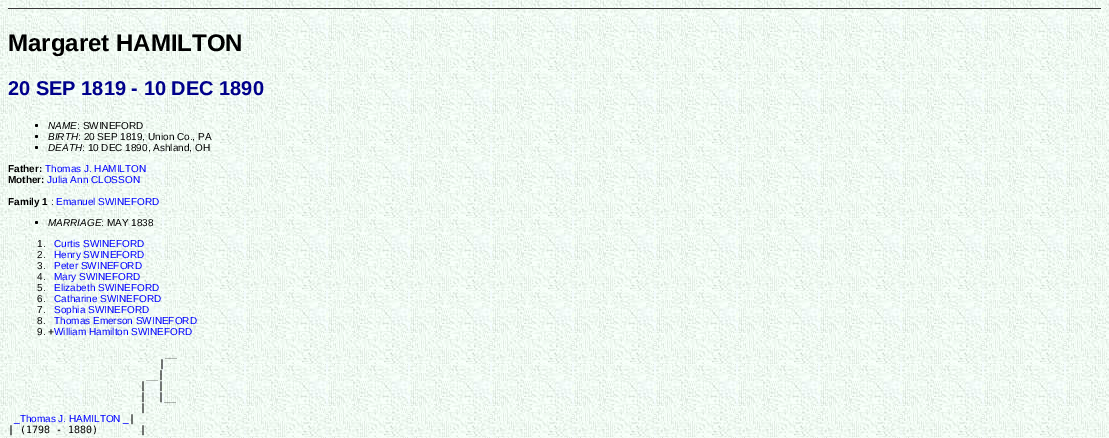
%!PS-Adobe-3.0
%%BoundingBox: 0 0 1109 438
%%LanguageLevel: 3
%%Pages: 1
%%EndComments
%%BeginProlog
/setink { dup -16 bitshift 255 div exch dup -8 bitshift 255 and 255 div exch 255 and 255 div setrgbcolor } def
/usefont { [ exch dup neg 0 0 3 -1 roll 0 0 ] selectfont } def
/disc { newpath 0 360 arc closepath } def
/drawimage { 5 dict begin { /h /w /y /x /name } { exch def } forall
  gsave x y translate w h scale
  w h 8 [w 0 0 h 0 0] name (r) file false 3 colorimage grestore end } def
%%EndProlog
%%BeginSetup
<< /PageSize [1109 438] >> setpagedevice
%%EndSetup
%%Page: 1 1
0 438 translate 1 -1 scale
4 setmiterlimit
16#FFFFFF setink
0 0 1109 438 rectfill
(img1.raw) 0 0 1109 438 drawimage
16#393939 setink
8 8 1093 1 rectfill
/LiberationSans-Bold 24 usefont
16#000000 setink
8 51 moveto (Margaret HAMILTON) show
/LiberationSans-Bold 20 usefont
16#00008B setink
8 95 moveto (20 SEP 1819 - 10 DEC 1890) show
16#000000 setink
36.5 125.5 1.5 disc fill
/LiberationSans-Italic 10 usefont
48 129 moveto (NAME) show
/LiberationSans-Regular 10 usefont
77 129 moveto (: SWINEFORD) show
36.5 136.5 1.5 disc fill
/LiberationSans-Italic 10 usefont
48 140 moveto (BIRTH) show
/LiberationSans-Regular 10 usefont
78 140 moveto (: 20 SEP 1819, Union Co., PA) show
36.5 147.5 1.5 disc fill
/LiberationSans-Italic 10 usefont
48 151 moveto (DEATH) show
/LiberationSans-Regular 10 usefont
82 151 moveto (: 10 DEC 1890, Ashland, OH) show
/LiberationSans-Bold 10 usefont
8 172 moveto (Father:) show
/LiberationSans-Regular 10 usefont
16#0000FF setink
45 172 moveto (Thomas J. HAMILTON) show
/LiberationSans-Bold 10 usefont
16#000000 setink
8 183 moveto (Mother:) show
/LiberationSans-Regular 10 usefont
16#0000FF setink
47 183 moveto (Julia Ann CLOSSON) show
/LiberationSans-Bold 10 usefont
16#000000 setink
8 205 moveto (Family 1) show
/LiberationSans-Regular 10 usefont
51 205 moveto (:) show
16#0000FF setink
56 205 moveto (Emanuel SWINEFORD) show
16#000000 setink
36.5 222.5 1.5 disc fill
/LiberationSans-Italic 10 usefont
48 226 moveto (MARRIAGE) show
/LiberationSans-Regular 10 usefont
101 226 moveto (: MAY 1838) show
37 247 moveto (1.) show
16#0000FF setink
54 247 moveto (Curtis SWINEFORD) show
16#000000 setink
37 258 moveto (2.) show
16#0000FF setink
54 258 moveto (Henry SWINEFORD) show
16#000000 setink
37 269 moveto (3.) show
16#0000FF setink
54 269 moveto (Peter SWINEFORD) show
16#000000 setink
37 280 moveto (4.) show
16#0000FF setink
54 280 moveto (Mary SWINEFORD) show
16#000000 setink
37 291 moveto (5.) show
16#0000FF setink
54 291 moveto (Elizabeth SWINEFORD) show
16#000000 setink
37 302 moveto (6.) show
16#0000FF setink
54 302 moveto (Catharine SWINEFORD) show
16#000000 setink
37 313 moveto (7.) show
16#0000FF setink
54 313 moveto (Sophia SWINEFORD) show
16#000000 setink
37 324 moveto (8.) show
16#0000FF setink
54 324 moveto (Thomas Emerson SWINEFORD) show
16#000000 setink
37 335 moveto (9.) show
/DejaVuSansMono-Regular 10 usefont
48 335 moveto (+) show
/LiberationSans-Regular 10 usefont
16#0000FF setink
54 335 moveto (William Hamilton SWINEFORD) show
/DejaVuSansMono-Regular 10 usefont
16#000000 setink
[
    [(__) 165 356]
    [(|) 159 367]
    [(__|) 146 378]
    [(|  |) 140 389]
    [(|  |__) 140 400]
    [(|) 140 411]
] { aload pop moveto show } forall
/LiberationSans-Regular 10 usefont
16#0000FF setink
14 422 moveto (_Thomas J. HAMILTON _) show
/DejaVuSansMono-Regular 10 usefont
16#000000 setink
129 422 moveto (|) show
8 433 moveto (| \(1798 - 1880\)       |) show
showpage
%%EOF
